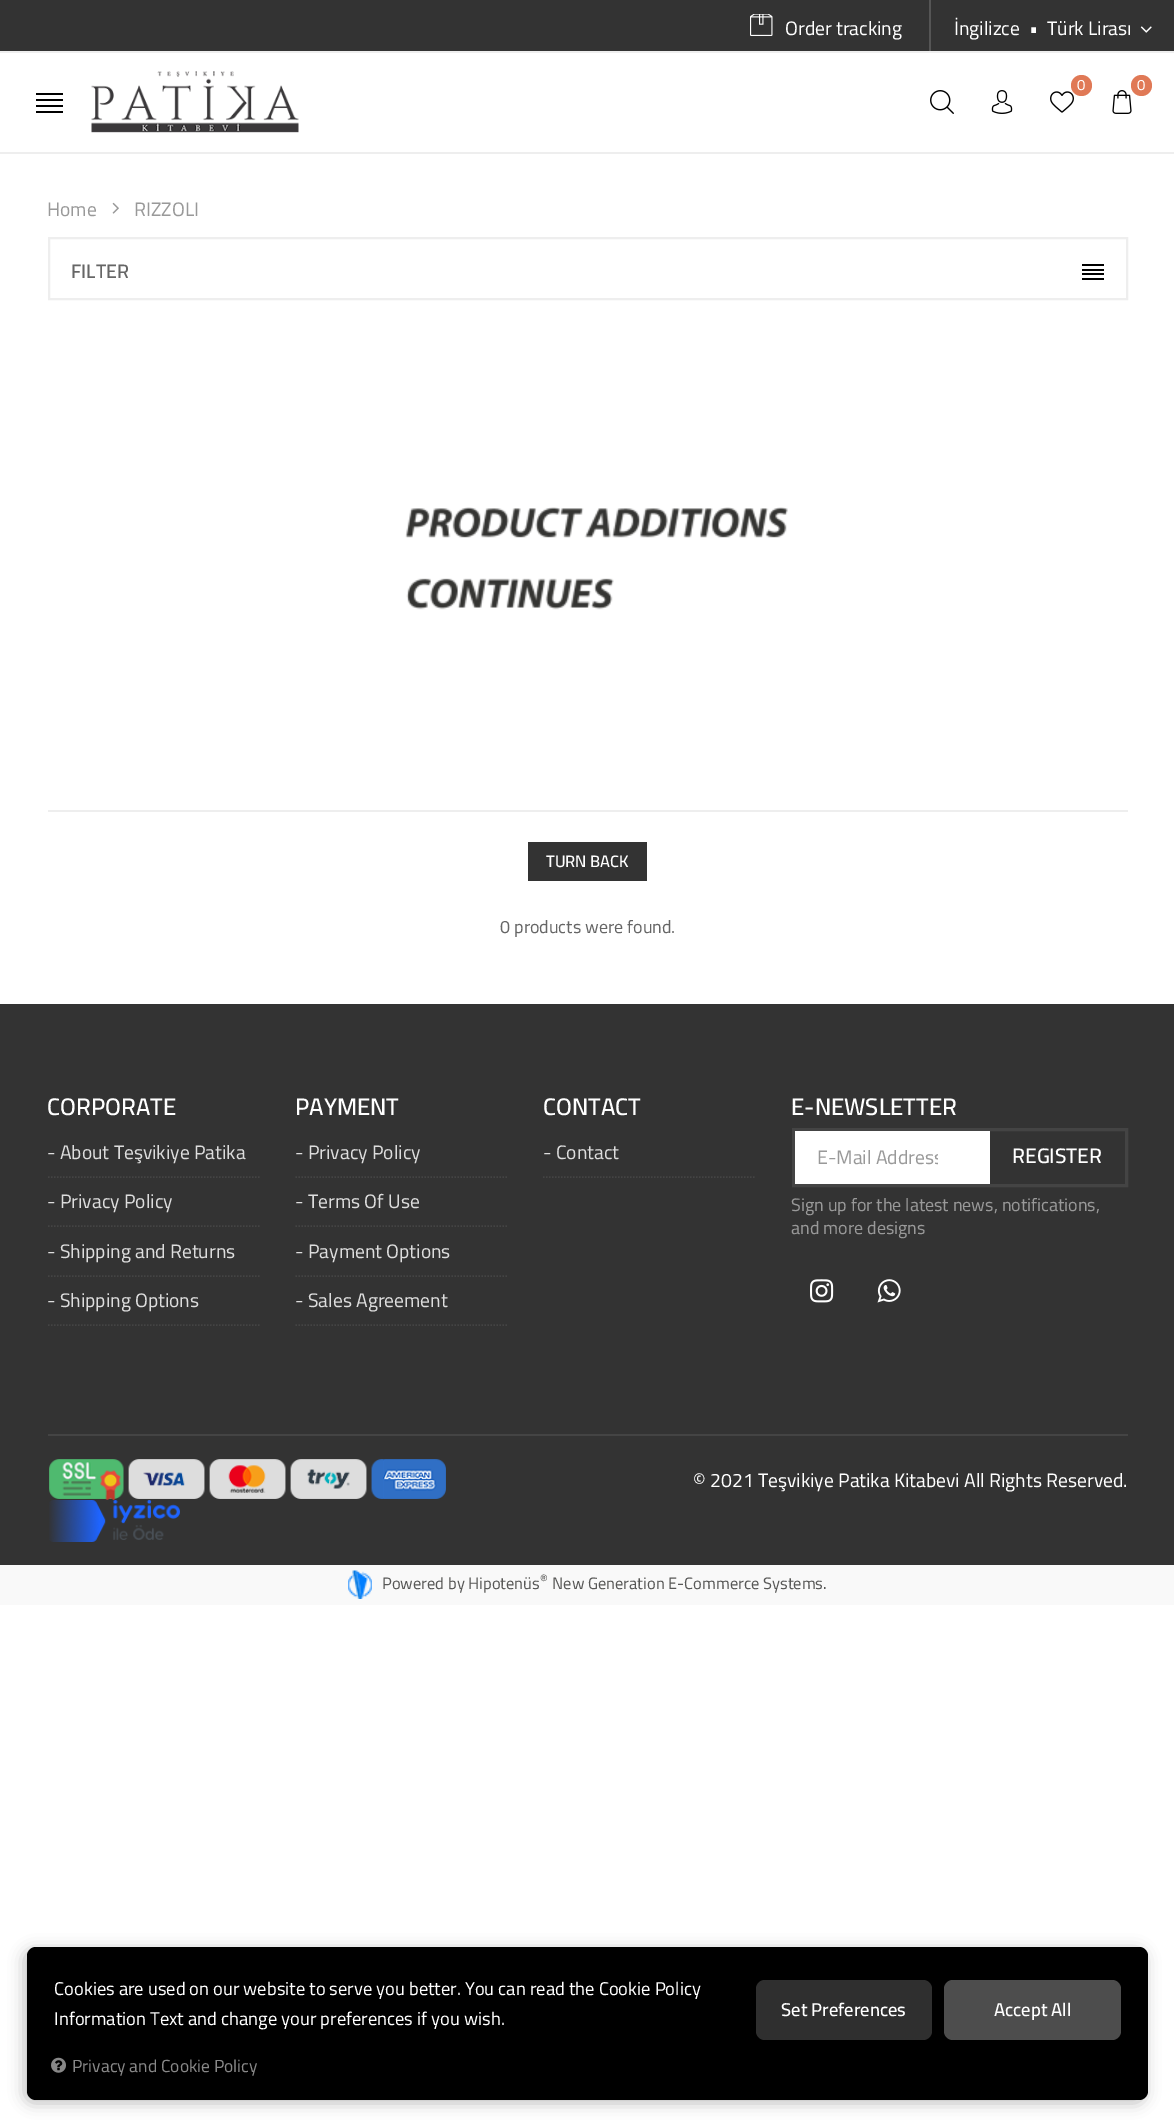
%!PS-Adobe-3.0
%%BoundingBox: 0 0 1174 2127
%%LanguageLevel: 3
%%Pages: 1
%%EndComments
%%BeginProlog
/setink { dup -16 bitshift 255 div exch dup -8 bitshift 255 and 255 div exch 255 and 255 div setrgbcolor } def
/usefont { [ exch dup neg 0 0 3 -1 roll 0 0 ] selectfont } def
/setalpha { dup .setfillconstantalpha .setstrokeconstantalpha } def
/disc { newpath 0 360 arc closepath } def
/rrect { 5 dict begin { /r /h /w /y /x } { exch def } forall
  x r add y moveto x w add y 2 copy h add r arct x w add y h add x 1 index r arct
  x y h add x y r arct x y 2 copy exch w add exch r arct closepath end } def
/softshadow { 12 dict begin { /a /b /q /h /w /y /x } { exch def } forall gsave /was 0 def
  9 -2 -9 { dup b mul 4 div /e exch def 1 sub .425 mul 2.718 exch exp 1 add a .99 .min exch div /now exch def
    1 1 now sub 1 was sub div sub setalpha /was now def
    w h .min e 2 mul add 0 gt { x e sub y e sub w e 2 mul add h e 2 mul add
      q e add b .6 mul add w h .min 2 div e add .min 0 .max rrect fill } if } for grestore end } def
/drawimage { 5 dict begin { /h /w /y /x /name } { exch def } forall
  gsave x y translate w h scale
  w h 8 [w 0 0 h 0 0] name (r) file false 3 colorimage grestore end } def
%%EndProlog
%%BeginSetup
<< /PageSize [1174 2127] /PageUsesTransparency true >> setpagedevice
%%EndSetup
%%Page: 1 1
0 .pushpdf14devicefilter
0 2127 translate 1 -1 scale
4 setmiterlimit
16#FFFFFF setink
0 0 1174 2127 rectfill
16#333333 setink
0 0 1174 51 rectfill
16#EEEEEE setink
0 51 1174 2 rectfill
(img1.raw) 750 14 23 22 drawimage
/Cairo-Regular 19.5 usefont
16#FFFFFF setink
785 35 moveto (Order tracking) show
16#555555 setink
929 0 2 51 rectfill
16#FFFFFF setink
[
    [(İngilizce) 954 35]
    [(•) 1029 35]
    [(Türk Lirası) 1047 35]
] { aload pop moveto show } forall
(img2.raw) 1140 26 12 7 drawimage
[
    [0 152 1174 2 16#EEEEEE]
    [36 93 27 2 16#000000]
    [36 99 27 2 16#000000]
    [36 105 27 2 16#000000]
    [36 111 27 2 16#000000]
] { aload pop setink rectfill } forall
(img3.raw) 91 71 208 62 drawimage
(img4.raw) 1050 91 24 22 drawimage
16#E07956 setink
1081.5 85.5 10.5 disc fill
/Cairo-Regular 15 usefont
16#FFFFFF setink
1077 90 moveto (0) show
(img5.raw) 1112 90 20 24 drawimage
16#E07956 setink
1141.5 85.5 10.5 disc fill
16#FFFFFF setink
1137 90 moveto (0) show
(img6.raw) 930 90 24 24 drawimage
(img7.raw) 991 90 22 24 drawimage
/Cairo-Regular 19.5 usefont
16#999999 setink
47 216 moveto (Home) show
(img8.raw) 112 202 7 12 drawimage
134 216 moveto (RIZZOLI) show
16#EEEEEE setink
2 setlinewidth
49 238 1078 61 rectstroke
/Cairo-SemiBold 19.5 usefont
16#666666 setink
71 278 moveto (FILTER) show
[
    [1082 264 22 2 16#000000]
    [1082 269 22 2 16#000000]
    [1082 273 22 2 16#000000]
    [1082 278 22 2 16#000000]
] { aload pop setink rectfill } forall
(img9.raw) 405 507 383 103 drawimage
16#EEEEEE setink
48 810 1080 2 rectfill
16#333333 setink
528 842 119 39 rectfill
/Cairo-SemiBold 16.5 usefont
16#FFFFFF setink
546 867 moveto (TURN BACK) show
/Cairo-Regular 18 usefont
16#666666 setink
500 933 moveto (0 products were found.) show
16#333333 setink
0 1004 1174 561 rectfill
/Cairo-SemiBold 24 usefont
16#FFFFFF setink
47 1115 moveto (CORPORATE) show
16#444444 setink
1.5 setlinewidth
[1.5 1.5] 0 setdash
48 1177 moveto 259.5 1177 lineto stroke
/Cairo-Regular 19.5 usefont
16#DDDDDD setink
47 1159 moveto (- About Teşvikiye Patika) show
16#444444 setink
48 1226 moveto 259.5 1226 lineto stroke
16#DDDDDD setink
47 1208 moveto (- Privacy Policy) show
16#444444 setink
48 1276 moveto 259.5 1276 lineto stroke
16#DDDDDD setink
47 1258 moveto (- Shipping and Returns) show
16#444444 setink
48 1325 moveto 259.5 1325 lineto stroke
16#DDDDDD setink
47 1307 moveto (- Shipping Options) show
/Cairo-SemiBold 24 usefont
16#FFFFFF setink
295 1115 moveto (PAYMENT) show
16#444444 setink
295.5 1177 moveto 507 1177 lineto stroke
/Cairo-Regular 19.5 usefont
16#DDDDDD setink
295 1159 moveto (- Privacy Policy) show
16#444444 setink
295.5 1226 moveto 507 1226 lineto stroke
16#DDDDDD setink
295 1208 moveto (- Terms Of Use) show
16#444444 setink
295.5 1276 moveto 507 1276 lineto stroke
16#DDDDDD setink
295 1258 moveto (- Payment Options) show
16#444444 setink
295.5 1325 moveto 507 1325 lineto stroke
16#DDDDDD setink
295 1307 moveto (- Sales Agreement) show
/Cairo-SemiBold 24 usefont
16#FFFFFF setink
543 1115 moveto (CONTACT) show
16#444444 setink
543 1177 moveto 754.5 1177 lineto stroke
/Cairo-Regular 19.5 usefont
16#DDDDDD setink
543 1159 moveto (- Contact) show
/Cairo-SemiBold 24 usefont
16#FFFFFF setink
791 1115 moveto (E-NEWSLETTER) show
16#444444 setink
3 setlinewidth
[] 0 setdash
793.5 1129.5 333 56 rectstroke
16#FFFFFF setink
795 1131 195 53 rectfill
gsave
818 1139 120 36 rectclip
/Cairo-Regular 19.5 usefont
16#999999 setink
817 1164 moveto (E-Mail Address) show
grestore
/Cairo-SemiBold 21 usefont
1012 1163 moveto (REGISTER) show
/Cairo-Regular 18 usefont
16#999999 setink
791 1211 moveto (Sign up for the latest news, notifications,) show
791 1234 moveto (and more designs) show
(img10.raw) 810 1279 24 24 drawimage
(img11.raw) 877 1279 24 24 drawimage
16#444444 setink
48 1434 1080 2 rectfill
(img12.raw) 49 1459 75 41 drawimage
(img13.raw) 128 1459 77 40 drawimage
(img14.raw) 209 1459 77 40 drawimage
(img15.raw) 290 1459 77 40 drawimage
(img16.raw) 371 1459 75 40 drawimage
(img17.raw) 49 1500 131 42 drawimage
/Cairo-Regular 19.5 usefont
16#FFFFFF setink
693 1487 moveto (© 2021 Teşvikiye Patika Kitabevi All Rights Reserved.) show
16#F9F9F9 setink
0 1565 1174 40 rectfill
(img18.raw) 348 1570 24 29 drawimage
/Cairo-Regular 16.5 usefont
16#575756 setink
382 1589 moveto (Powered by Hipotenüs) show
/Cairo-Regular 12 usefont
540 1583 moveto (®) show
/Cairo-Regular 16.5 usefont
552 1589 moveto (New Generation E-Commerce Systems.) show
16#000000 setink
24 1950 1121 153 9 7.5 0.25 softshadow
27 1947 1121 153 9 rrect fill
/Cairo-Regular 18.5 usefont
16#FFFFFF setink
54 1995 moveto (Cookies are used on our website to serve you better. You can read the Cookie Policy) show
54 2025 moveto (Information Text and change your preferences if you wish.) show
16#2F2F2F setink
756 1980 176 60 9 rrect fill
/Cairo-SemiBold 18.5 usefont
16#FFFFFF setink
781 2016 moveto (Set Preferences) show
16#4D4D4D setink
944 1980 177 60 9 rrect fill
16#FFFFFF setink
994 2016 moveto (Accept All) show
(img19.raw) 51 2057 15 16 drawimage
/Cairo-Regular 17.5 usefont
16#888888 setink
72 2072 moveto (Privacy and Cookie Policy) show
.poppdf14devicefilter showpage
%%EOF
